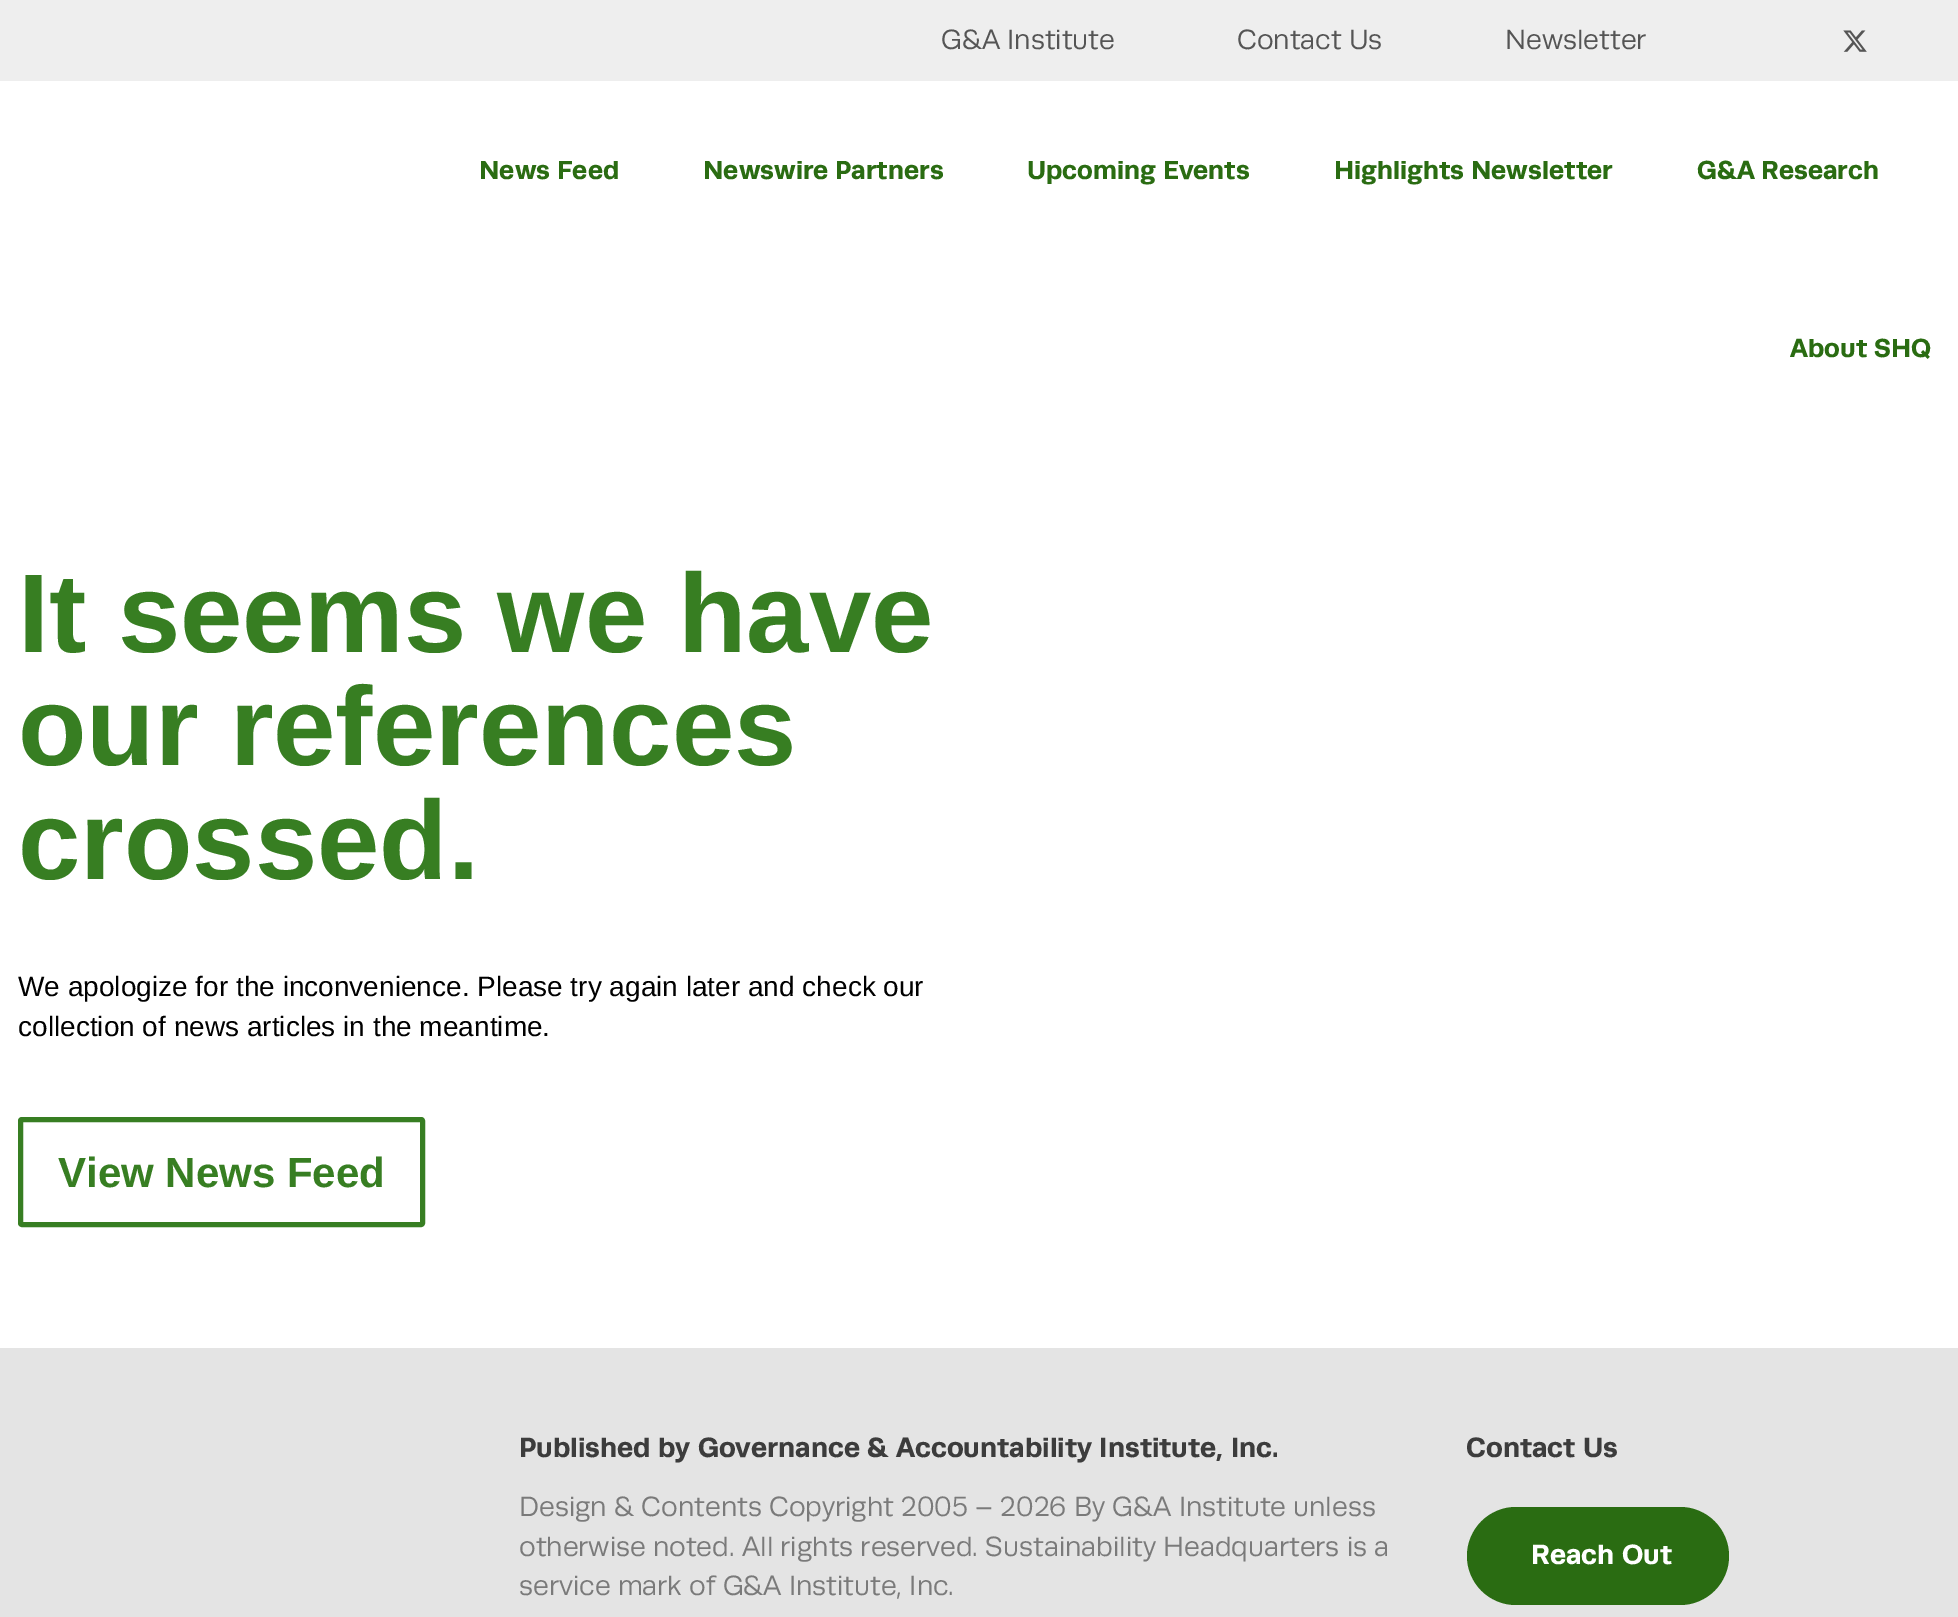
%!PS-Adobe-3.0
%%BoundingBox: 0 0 1958 1617
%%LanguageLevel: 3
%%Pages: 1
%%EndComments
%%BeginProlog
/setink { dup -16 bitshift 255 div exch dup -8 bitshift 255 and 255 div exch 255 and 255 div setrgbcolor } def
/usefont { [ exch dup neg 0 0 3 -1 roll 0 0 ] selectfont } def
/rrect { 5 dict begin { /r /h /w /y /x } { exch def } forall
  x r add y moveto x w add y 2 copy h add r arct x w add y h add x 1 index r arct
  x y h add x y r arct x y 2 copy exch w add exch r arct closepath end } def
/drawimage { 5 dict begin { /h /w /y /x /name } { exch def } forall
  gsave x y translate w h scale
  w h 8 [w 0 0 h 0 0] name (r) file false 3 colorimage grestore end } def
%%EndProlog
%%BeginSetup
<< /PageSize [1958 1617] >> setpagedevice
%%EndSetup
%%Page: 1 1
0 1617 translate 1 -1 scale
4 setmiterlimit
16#FFFFFF setink
0 0 1958 1617 rectfill
16#EEEEEE setink
0 0 1958 81 rectfill
/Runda-Regular 28 usefont
16#555555 setink
[
    [(G&A Institute) 941 49]
    [(Contact Us) 1237 49]
    [(Newsletter) 1505 49]
] { aload pop moveto show } forall
(img1.raw) 1843 30 24 22 drawimage
/Runda-Bold 26.25 usefont
16#2A6C12 setink
[
    [(News Feed) 479 179]
    [(Newswire Partners) 703 179]
    [(Upcoming Events) 1027 179]
    [(Highlights Newsletter) 1334 179]
    [(G&A Research) 1697 179]
    [(About SHQ) 1790 357]
] { aload pop moveto show } forall
/LiberationSans-Bold 112 usefont
16#377E22 setink
[
    [(It seems we have) 18 652]
    [(our references) 18 765]
    [(crossed.) 18 879]
] { aload pop moveto show } forall
/LiberationSans-Regular 28 usefont
16#000000 setink
18 996 moveto (We apologize for the inconvenience. Please try again later and check our) show
18 1036 moveto (collection of news articles in the meantime.) show
16#377E22 setink
5 setlinewidth
20.5 1119.5 402 105 1.5 rrect stroke
/LiberationSans-Bold 42 usefont
58 1187 moveto (View News Feed) show
16#E4E4E4 setink
0 1348 1958 269 rectfill
/Runda-Bold 28 usefont
16#3C3C3C setink
519 1457 moveto (Published by Governance & Accountability Institute, Inc.) show
/Runda-Regular 28 usefont
16#7A7A7A setink
[
    [(Design & Contents Copyright 2005 – 2026 By G&A Institute unless) 519 1516]
    [(otherwise noted. All rights reserved. Sustainability Headquarters is a) 519 1556]
    [(service mark of G&A Institute, Inc.) 519 1595]
] { aload pop moveto show } forall
/Runda-Bold 28 usefont
16#3C3C3C setink
1466 1457 moveto (Contact Us) show
16#2A6C12 setink
1467 1507 262 98 49 rrect fill
16#FFFFFF setink
1531 1564 moveto (Reach Out) show
showpage
%%EOF
